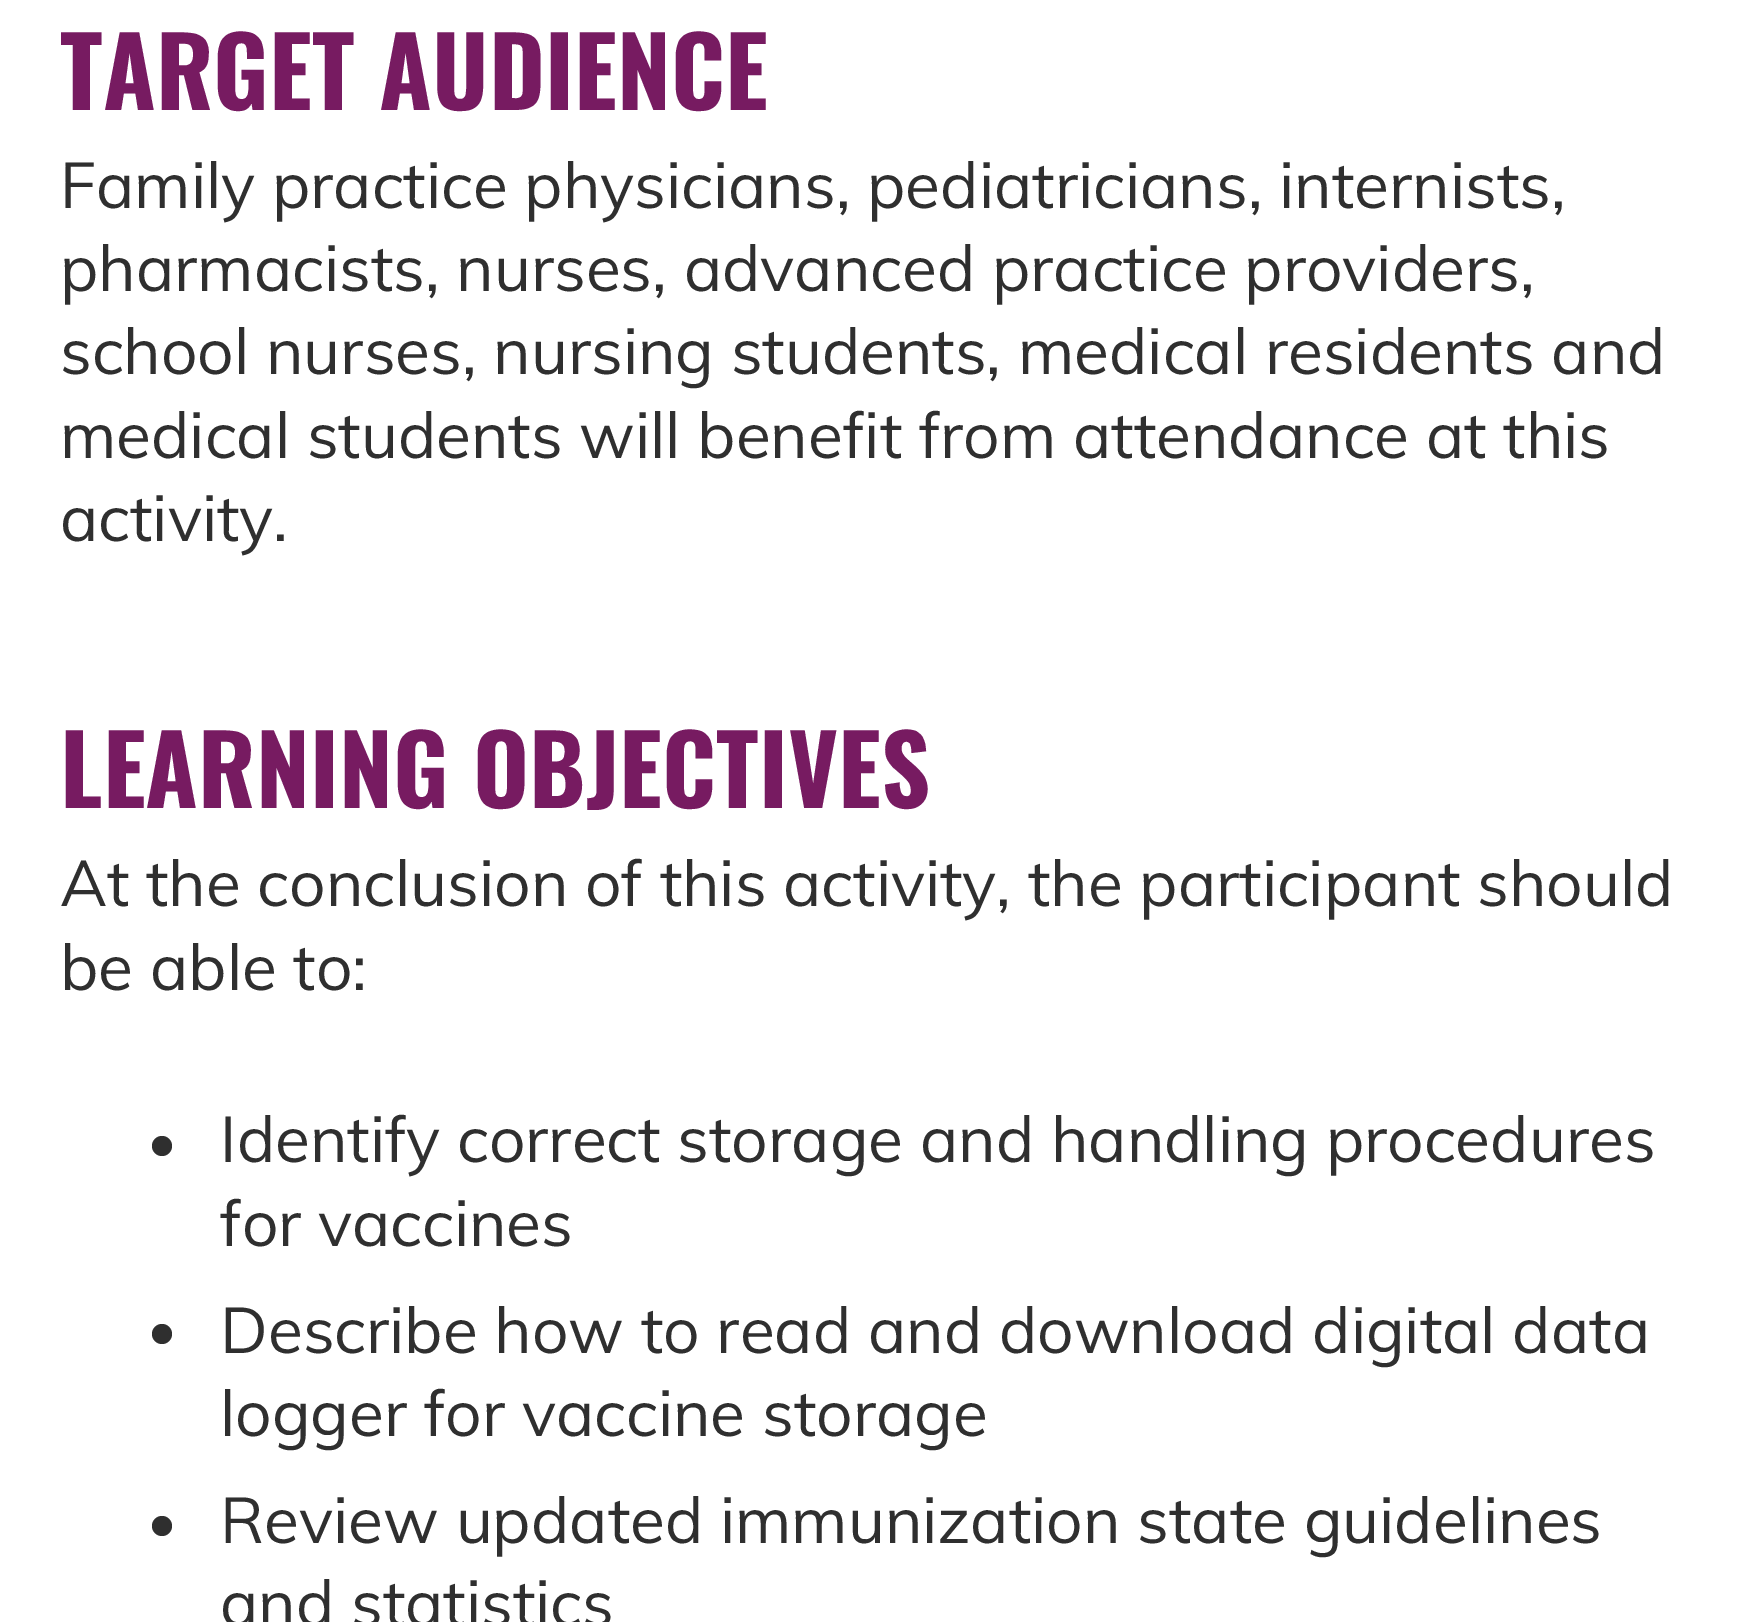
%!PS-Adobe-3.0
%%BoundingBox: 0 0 1760 1622
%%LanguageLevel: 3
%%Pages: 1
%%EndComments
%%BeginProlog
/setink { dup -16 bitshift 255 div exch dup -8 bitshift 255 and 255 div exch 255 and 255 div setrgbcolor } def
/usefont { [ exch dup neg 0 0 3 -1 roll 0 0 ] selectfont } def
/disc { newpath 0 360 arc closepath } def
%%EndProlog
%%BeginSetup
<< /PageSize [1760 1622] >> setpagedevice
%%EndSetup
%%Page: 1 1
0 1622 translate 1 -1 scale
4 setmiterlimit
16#FFFFFF setink
0 0 1760 1622 rectfill
/Oswald-Bold 96 usefont
16#771B61 setink
60 110 moveto (TARGET AUDIENCE) show
/Muli-Regular 64 usefont
16#2F2F2F setink
[
    [(Family practice physicians, pediatricians, internists,) 60 208]
    [(pharmacists, nurses, advanced practice providers,) 60 291]
    [(school nurses, nursing students, medical residents and) 60 374]
    [(medical students will benefit from attendance at this) 60 458]
    [(activity.) 60 541]
] { aload pop moveto show } forall
/Oswald-Bold 96 usefont
16#771B61 setink
60 808 moveto (LEARNING OBJECTIVES) show
/Muli-Regular 64 usefont
16#2F2F2F setink
60 906 moveto (At the conclusion of this activity, the participant should) show
60 990 moveto (be able to:) show
162 1146 10 disc fill
220 1162 moveto (Identify correct storage and handling procedures) show
220 1246 moveto (for vaccines) show
162 1334 10 disc fill
220 1353 moveto (Describe how to read and download digital data) show
220 1436 moveto (logger for vaccine storage) show
162 1526 10 disc fill
220 1543 moveto (Review updated immunization state guidelines) show
220 1626 moveto (and statistics) show
showpage
%%EOF
